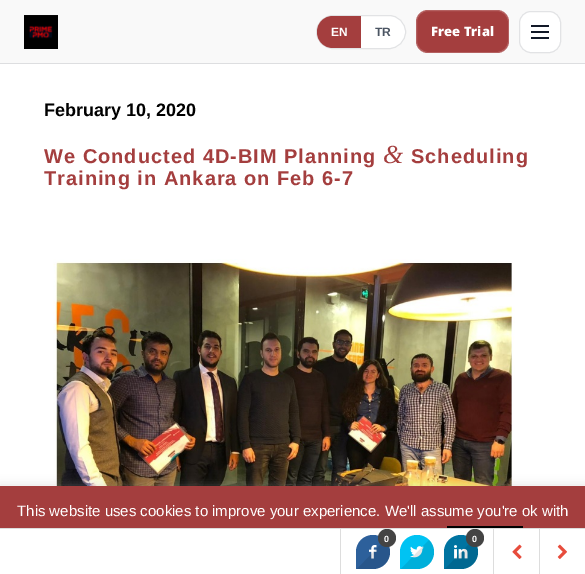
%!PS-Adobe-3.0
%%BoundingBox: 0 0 585 574
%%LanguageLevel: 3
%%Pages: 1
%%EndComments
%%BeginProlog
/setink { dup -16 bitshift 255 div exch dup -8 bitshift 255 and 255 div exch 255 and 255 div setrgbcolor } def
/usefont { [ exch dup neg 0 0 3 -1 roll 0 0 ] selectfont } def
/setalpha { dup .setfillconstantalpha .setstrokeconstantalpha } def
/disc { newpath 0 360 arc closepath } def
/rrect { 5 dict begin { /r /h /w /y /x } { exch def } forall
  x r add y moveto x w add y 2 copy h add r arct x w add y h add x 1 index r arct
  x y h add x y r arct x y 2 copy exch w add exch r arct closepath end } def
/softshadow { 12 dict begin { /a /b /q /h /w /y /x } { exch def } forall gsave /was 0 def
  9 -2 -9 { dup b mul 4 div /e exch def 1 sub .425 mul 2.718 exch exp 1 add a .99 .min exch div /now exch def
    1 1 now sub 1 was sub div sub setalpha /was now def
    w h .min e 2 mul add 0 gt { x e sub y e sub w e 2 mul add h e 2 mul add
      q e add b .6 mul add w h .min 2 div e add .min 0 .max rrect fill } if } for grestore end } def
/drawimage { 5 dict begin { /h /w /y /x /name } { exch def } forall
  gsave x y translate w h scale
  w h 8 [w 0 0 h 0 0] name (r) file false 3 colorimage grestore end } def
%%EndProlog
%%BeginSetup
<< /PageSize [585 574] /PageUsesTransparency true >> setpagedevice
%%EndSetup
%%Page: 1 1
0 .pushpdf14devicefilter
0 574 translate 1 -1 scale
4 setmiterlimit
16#FFFFFF setink
0 0 585 574 rectfill
16#F9F9F9 setink
0 0 585 63 rectfill
16#DDDEE0 setink
0 63 585 1 rectfill
(img1.raw) 24 15 34 34 drawimage
16#FFFFFF setink
316 15 90 34 17 rrect fill
0.12 setalpha
16#111827 setink
316.5 15.5 89 33 16.5 rrect stroke
1 setalpha
16#A43E3E setink
333 16 moveto 361 16 lineto 361 48 lineto 333 48 lineto 324 48 317 41 317 32 curveto 317 23 324 16 333 16 curveto closepath fill
/LiberationSans-Bold 12 usefont
16#FFFFFF setink
331 36 moveto (EN) show
16#4B5563 setink
375 36 moveto (TR) show
16#A43E3E setink
416 10 93 43 12 rrect fill
0.18 setalpha
16#FFFFFF setink
416.5 10.5 92 42 11.5 rrect stroke
/NotoSans-Black 13 usefont
1 setalpha
431 36 moveto (Free Trial) show
519 11 42 42 12 rrect fill
0.12 setalpha
16#111827 setink
519.5 11.5 41 41 11.5 rrect stroke
1 setalpha
[
    [531 31 18 2 16#111827]
    [531 25 18 2 16#111827]
    [531 37 18 2 16#111827]
] { aload pop setink rectfill } forall
/LiberationSans-Bold 18 usefont
16#000000 setink
44 116 moveto (February 10, 2020) show
/LiberationSans-Bold 20 usefont
16#A43E3E setink
44 163 moveto 1 0 (We Conducted 4D-BIM Planning) ashow
/LiberationSerif-Italic 26 usefont
383 163 moveto 1 0 (&) ashow
/LiberationSans-Bold 20 usefont
411 163 moveto 1 0 (Scheduling) ashow
44 185 moveto 1 0 (Training in Ankara on Feb 6-7) ashow
(img2.raw) 53 259 462 227 drawimage
16#ACABAB setink
0 485 585 88 0 5 0.3 softshadow
16#A43E3E setink
0 486 585 42 rectfill
/LiberationSans-Regular 15 usefont
16#FFFFFF setink
17 516 moveto (This website uses cookies to improve your experience. We'll assume you're ok with) show
[
    [447 526 76 2 16#000000]
    [0 529 585 45 16#FFFFFF]
    [0 528 585 1 16#DDDDDD]
    [340 529 1 45 16#DDDDDD]
] { aload pop setink rectfill } forall
16#2D609B setink
373 535 moveto 382.5 535 390 542.5 390 552 curveto 390 561.5 382.5 569 373 569 curveto 356 569 lineto 356 552 lineto 356 542.5 363.5 535 373 535 curveto closepath fill
(img3.raw) 369 545 8 14 drawimage
0.1 setalpha
16#000000 setink
357 569 moveto 385 540 lineto 388 543 390 547.5 390 552 curveto 390 561.5 382.5 569 373 569 curveto closepath fill
1 setalpha
16#444444 setink
387 538 9 disc fill
/LiberationSans-Bold 9 usefont
16#FFFFFF setink
384 542 moveto (0) show
16#00C3F3 setink
417 535 moveto 426.5 535 434 542.5 434 552 curveto 434 561.5 426.5 569 417 569 curveto 400 569 lineto 400 552 lineto 400 542.5 407.5 535 417 535 curveto closepath fill
(img4.raw) 410 546 14 12 drawimage
0.1 setalpha
16#000000 setink
401 569 moveto 429 540 lineto 432 543 434 547.5 434 552 curveto 434 561.5 426.5 569 417 569 curveto closepath fill
1 setalpha
16#0074A1 setink
461 535 moveto 470.5 535 478 542.5 478 552 curveto 478 561.5 470.5 569 461 569 curveto 444 569 lineto 444 552 lineto 444 542.5 451.5 535 461 535 curveto closepath fill
(img5.raw) 454 545 14 14 drawimage
0.1 setalpha
16#000000 setink
445 569 moveto 473 540 lineto 476 543 478 547.5 478 552 curveto 478 561.5 470.5 569 461 569 curveto closepath fill
1 setalpha
16#444444 setink
475 538 9 disc fill
16#FFFFFF setink
472 542 moveto (0) show
16#DDDDDD setink
493 529 1 45 rectfill
(img6.raw) 512 544 10 15 drawimage
539 529 1 45 rectfill
(img7.raw) 557 544 10 15 drawimage
.poppdf14devicefilter showpage
%%EOF
